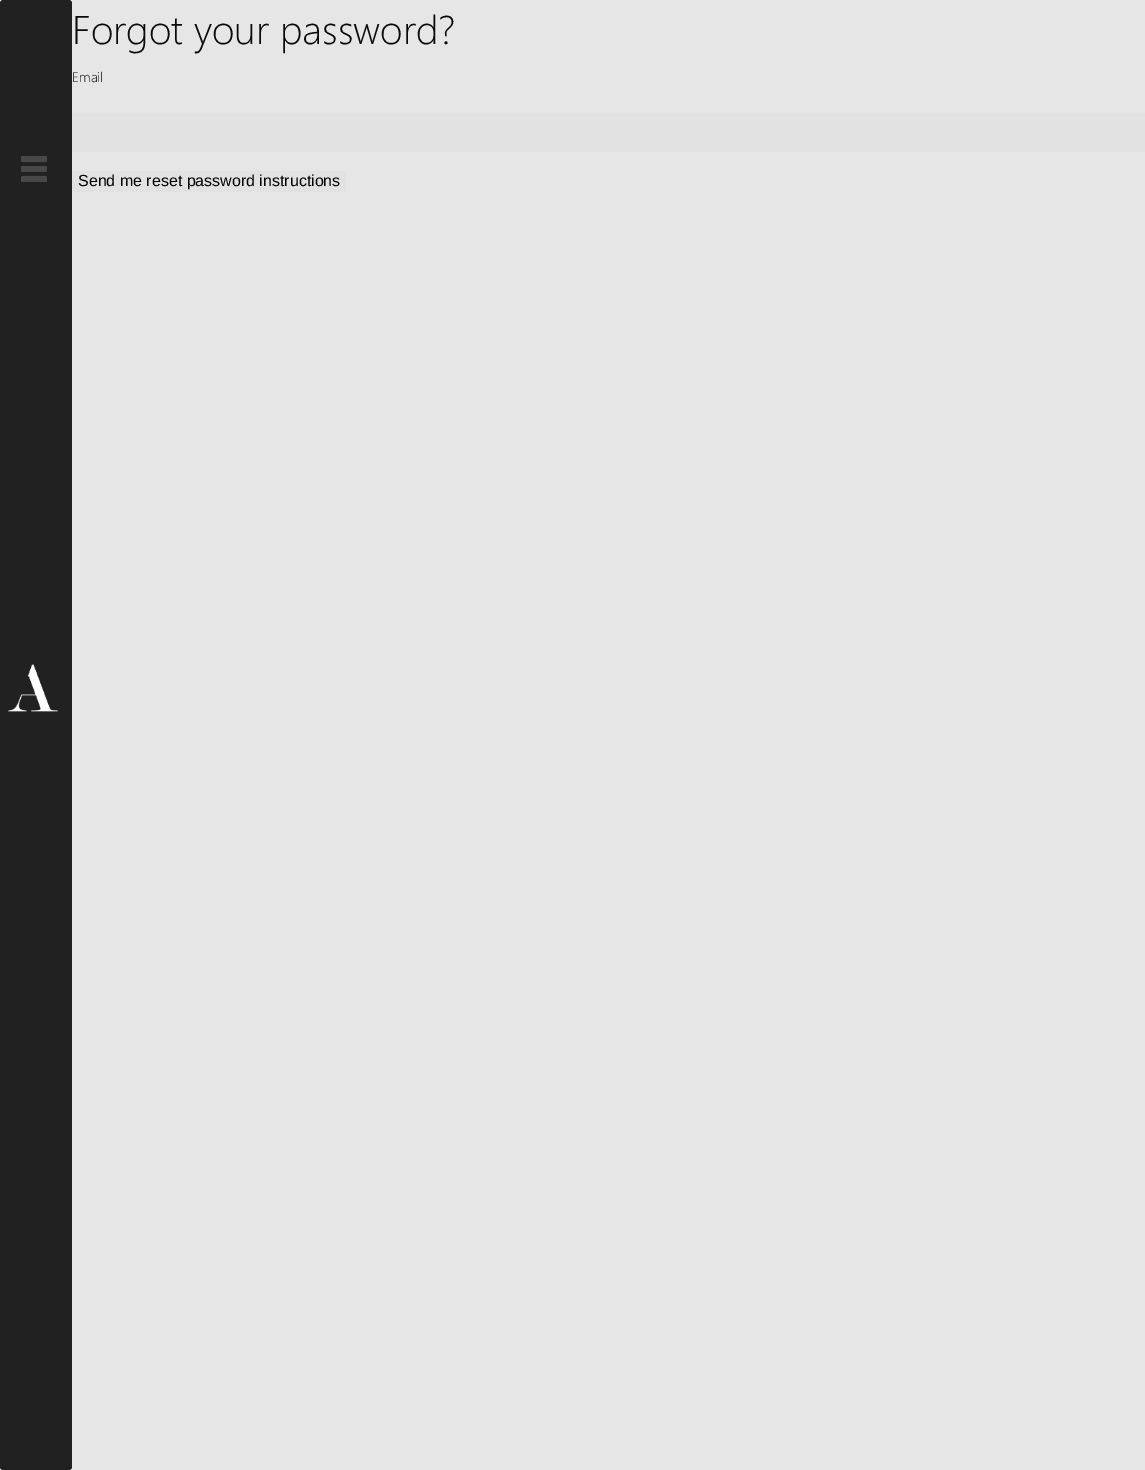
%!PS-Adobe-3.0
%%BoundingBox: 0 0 1145 1470
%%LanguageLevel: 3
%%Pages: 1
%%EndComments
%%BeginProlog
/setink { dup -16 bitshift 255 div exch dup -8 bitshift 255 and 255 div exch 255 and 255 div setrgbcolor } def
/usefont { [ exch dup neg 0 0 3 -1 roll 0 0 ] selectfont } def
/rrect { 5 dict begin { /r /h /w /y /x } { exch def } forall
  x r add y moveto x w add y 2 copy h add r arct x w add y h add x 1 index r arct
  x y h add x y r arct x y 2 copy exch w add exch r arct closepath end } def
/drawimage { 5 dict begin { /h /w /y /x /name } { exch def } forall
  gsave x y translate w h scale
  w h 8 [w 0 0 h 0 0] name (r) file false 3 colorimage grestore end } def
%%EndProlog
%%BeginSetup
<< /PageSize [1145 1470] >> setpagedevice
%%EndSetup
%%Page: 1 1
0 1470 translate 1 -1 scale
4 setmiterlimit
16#FFFFFF setink
0 0 1145 1470 rectfill
16#212121 setink
0 0 72 1470 3 rrect fill
(img1.raw) 21 156 26 26 drawimage
(img2.raw) 8 664 50 48 drawimage
16#E6E6E6 setink
72 0 1073 1470 rectfill
/SegoeUI-Light 40 usefont
16#0A0A0A setink
72 44 moveto (Forgot your password?) show
/SegoeUI-Light 14 usefont
72 82 moveto (Email) show
16#E2E2E2 setink
72 113 1073 39 rectfill
72 171 274 21 rectfill
/LiberationSans-Regular 16 usefont
16#000000 setink
78 186 moveto (Send me reset password instructions) show
showpage
%%EOF
